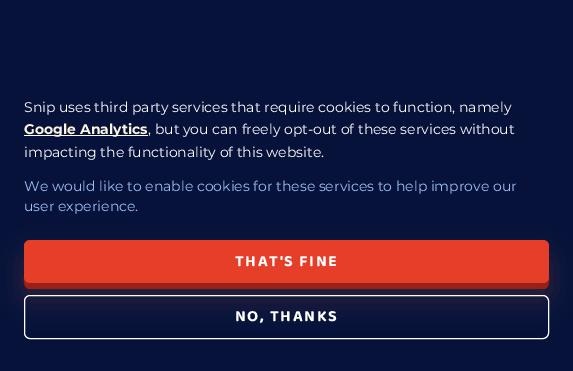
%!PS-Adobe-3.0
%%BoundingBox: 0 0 573 371
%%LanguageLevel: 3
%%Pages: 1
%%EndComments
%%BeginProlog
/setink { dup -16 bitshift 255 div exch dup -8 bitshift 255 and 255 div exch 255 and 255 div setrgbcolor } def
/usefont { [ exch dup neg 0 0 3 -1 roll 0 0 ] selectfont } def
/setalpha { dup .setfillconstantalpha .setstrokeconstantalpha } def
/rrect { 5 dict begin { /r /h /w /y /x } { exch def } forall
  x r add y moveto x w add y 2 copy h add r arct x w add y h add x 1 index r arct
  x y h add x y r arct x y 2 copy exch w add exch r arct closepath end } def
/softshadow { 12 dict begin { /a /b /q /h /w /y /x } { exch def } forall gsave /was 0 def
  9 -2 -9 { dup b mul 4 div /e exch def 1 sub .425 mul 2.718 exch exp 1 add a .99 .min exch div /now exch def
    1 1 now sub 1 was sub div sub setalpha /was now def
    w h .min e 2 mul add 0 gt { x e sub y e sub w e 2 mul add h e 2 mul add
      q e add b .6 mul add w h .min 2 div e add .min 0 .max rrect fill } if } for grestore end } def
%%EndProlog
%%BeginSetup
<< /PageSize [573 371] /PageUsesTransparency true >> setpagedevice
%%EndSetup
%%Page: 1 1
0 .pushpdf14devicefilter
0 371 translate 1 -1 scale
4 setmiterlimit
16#FFFFFF setink
0 0 573 371 rectfill
gsave 0 0 moveto 573 0 lineto 573 64 lineto 0 64 lineto closepath clip newpath
<< /ShadingType 2 /ColorSpace /DeviceRGB /Coords [286 0 287 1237] /Extend [true true] /Function << /FunctionType 2 /Domain [0 1] /C0 [0.027 0.071 0.231] /C1 [0.047 0.125 0.404] /N 1 >> >> shfill grestore
16#07123B setink
0 64 573 307 rectfill
/Montserrat-Thin 14 usefont
16#FFFFFF setink
24 112 moveto (Snip uses third party services that require cookies to function, namely) show
24 135 124 1 rectfill
/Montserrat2-Thin 14 usefont
16#FDF5E2 setink
24 134 moveto (Google Analytics) show
/Montserrat-Thin 14 usefont
16#FFFFFF setink
148 134 moveto (, but you can freely opt-out of these services without) show
24 157 moveto (impacting the functionality of this website.) show
16#9ABEF4 setink
24 191 moveto (We would like to enable cookies for these services to help improve our) show
24 211 moveto (user experience.) show
16#9F1706 setink
24 277 moveto 24 281 23 288 29 289 curveto 544 289 lineto 550 288 549 281 549 277 curveto 549 280 546 283 543 283 curveto 30 283 lineto 27 283 24 280 24 277 curveto closepath fill
16#824141 setink
23 255 527 45 7 13.5 0.32 softshadow
16#E53F29 setink
24 240 525 43 6 rrect fill
/Baloo2-Bold 16 usefont
16#FFFFFF setink
235 266 moveto 1.6 0 (THAT'S FINE) ashow
24.5 295.5 524 43 5.5 rrect stroke
235 321 moveto 1.6 0 (NO, THANKS) ashow
.poppdf14devicefilter showpage
%%EOF
